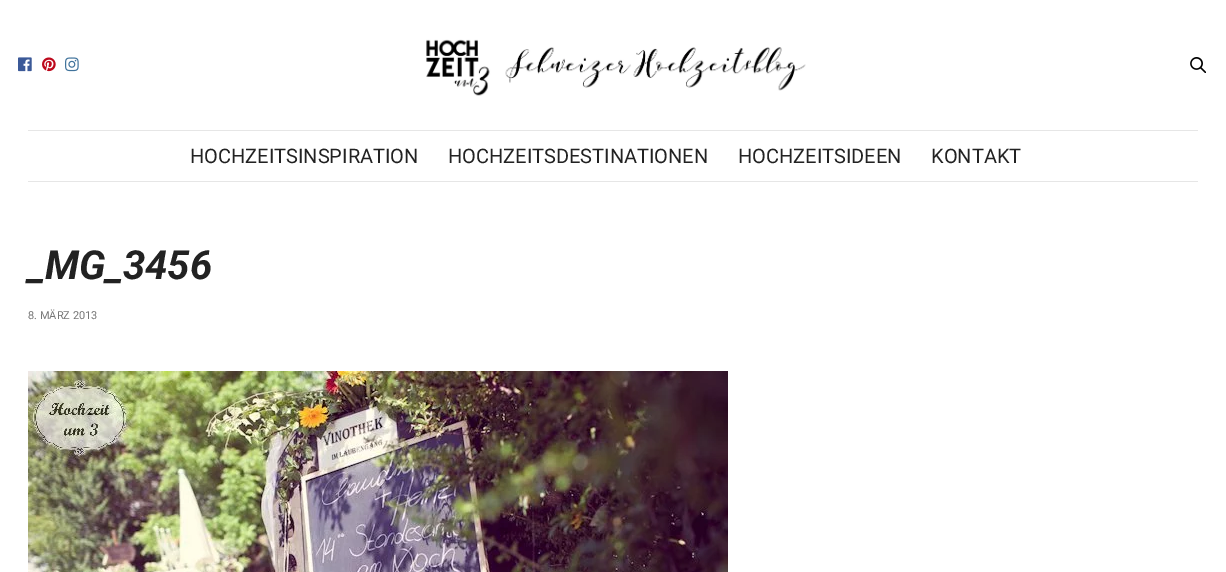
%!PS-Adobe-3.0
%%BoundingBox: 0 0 1226 572
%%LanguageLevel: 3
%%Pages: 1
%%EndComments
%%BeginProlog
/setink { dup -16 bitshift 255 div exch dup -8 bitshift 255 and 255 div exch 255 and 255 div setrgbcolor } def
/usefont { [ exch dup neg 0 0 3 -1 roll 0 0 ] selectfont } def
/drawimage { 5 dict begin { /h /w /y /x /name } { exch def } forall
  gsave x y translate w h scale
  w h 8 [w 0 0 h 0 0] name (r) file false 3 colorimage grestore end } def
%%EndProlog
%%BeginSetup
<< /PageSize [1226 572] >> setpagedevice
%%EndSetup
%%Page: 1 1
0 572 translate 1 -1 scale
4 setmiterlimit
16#FFFFFF setink
0 0 1226 572 rectfill
16#E6E6E6 setink
28 130 1170 1 rectfill
(img1.raw) 18 57 14 15 drawimage
(img2.raw) 42 57 14 15 drawimage
(img3.raw) 65 57 14 15 drawimage
(img4.raw) 426 39 380 57 drawimage
(img5.raw) 1190 57 16 16 drawimage
28 181 1170 1 rectfill
/Roboto-Regular 20 usefont
16#222222 setink
[
    [(HOCHZEITSINSPIRATION) 190 163]
    [(HOCHZEITSDESTINATIONEN) 448 163]
    [(HOCHZEITSIDEEN) 738 163]
    [(KONTAKT) 931 163]
] { aload pop moveto show } forall
/Roboto-BoldItalic 40 usefont
28 279 moveto (_MG_3456) show
/Roboto-Regular 11 usefont
16#767676 setink
28 319 moveto (8. MÄRZ 2013) show
(img6.raw) 28 371 700 201 drawimage
showpage
%%EOF
